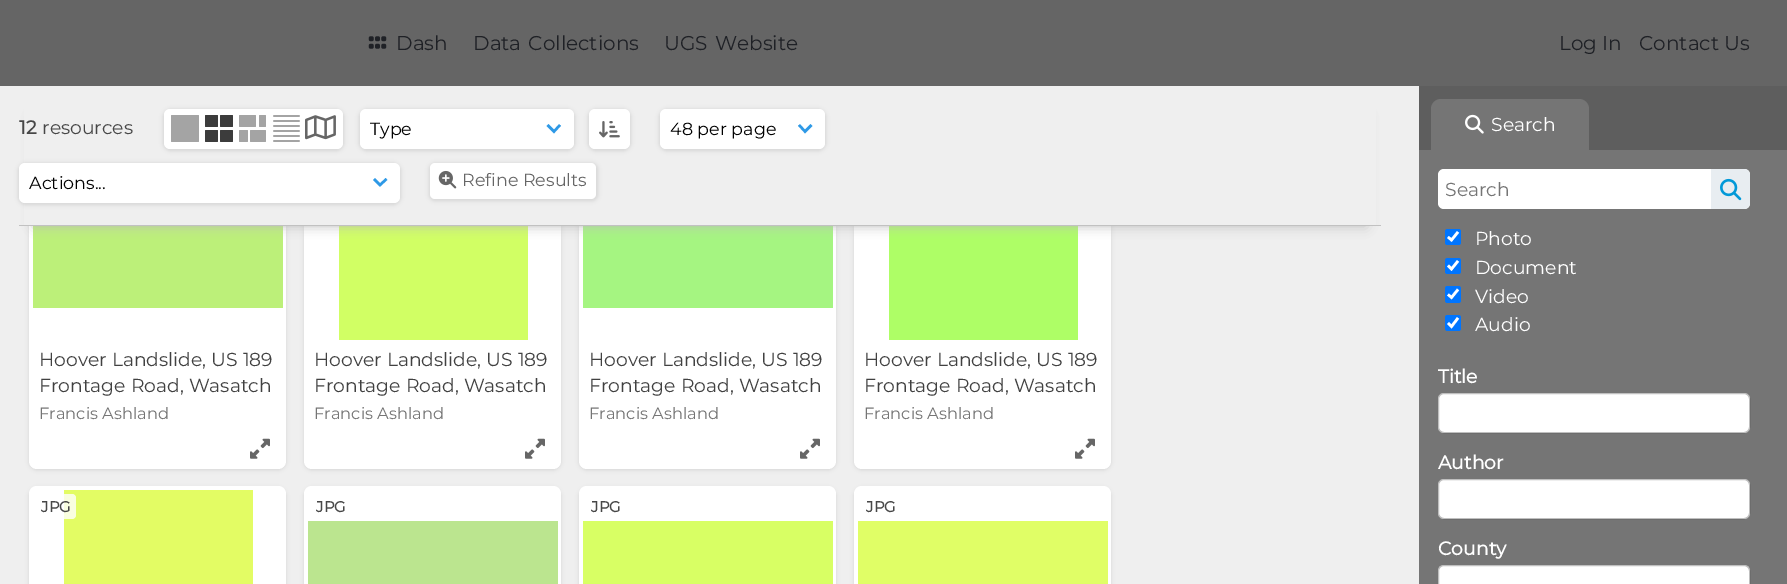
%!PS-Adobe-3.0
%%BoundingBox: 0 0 1787 584
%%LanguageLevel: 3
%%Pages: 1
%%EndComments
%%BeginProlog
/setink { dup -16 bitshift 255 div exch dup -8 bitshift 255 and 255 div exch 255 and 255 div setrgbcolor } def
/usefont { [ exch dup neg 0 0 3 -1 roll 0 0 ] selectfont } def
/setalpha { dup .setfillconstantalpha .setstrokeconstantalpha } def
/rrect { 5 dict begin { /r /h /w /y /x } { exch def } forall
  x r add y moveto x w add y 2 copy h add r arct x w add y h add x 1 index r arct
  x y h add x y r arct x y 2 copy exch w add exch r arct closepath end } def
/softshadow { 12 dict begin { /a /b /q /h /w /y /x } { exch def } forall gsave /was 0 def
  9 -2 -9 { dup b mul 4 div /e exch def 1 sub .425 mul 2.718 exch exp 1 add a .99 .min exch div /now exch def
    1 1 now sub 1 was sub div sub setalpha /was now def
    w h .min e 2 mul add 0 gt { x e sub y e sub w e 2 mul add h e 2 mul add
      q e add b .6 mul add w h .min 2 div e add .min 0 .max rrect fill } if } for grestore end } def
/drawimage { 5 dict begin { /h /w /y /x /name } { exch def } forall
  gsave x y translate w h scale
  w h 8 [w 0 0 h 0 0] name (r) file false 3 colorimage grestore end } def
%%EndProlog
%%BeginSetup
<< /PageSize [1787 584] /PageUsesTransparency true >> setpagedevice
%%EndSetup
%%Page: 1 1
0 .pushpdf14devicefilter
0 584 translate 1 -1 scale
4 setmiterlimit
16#EFEFEF setink
0 0 1787 584 rectfill
16#000000 setink
29 88 257 382 8 2 0.1 softshadow
304 88 257 382 8 2 0.1 softshadow
579 88 257 382 8 2 0.1 softshadow
854 88 257 382 8 2 0.1 softshadow
16#656565 setink
0 0 1787 86 rectfill
(img1.raw) 368 36 19 13 drawimage
/Montserrat-Regular 20 usefont
16#1F2126 setink
396 50 moveto (Dash) show
473 50 moveto 2 0 32 (Data Collections) widthshow
664 50 moveto 2 0 32 (UGS Website) widthshow
1559 50 moveto (Log In) show
1639 50 moveto (Contact Us) show
16#FFFFFF setink
29 86 257 383 8 rrect fill
16#BCF079 setink
33 226 250 82 rectfill
16#FFFFFF setink
304 86 257 383 8 rrect fill
16#D1FF64 setink
339 226 189 114 rectfill
16#FFFFFF setink
579 86 257 383 8 rrect fill
16#A5F581 setink
583 226 250 82 rectfill
16#FFFFFF setink
854 86 257 383 8 rrect fill
16#AEFE66 setink
889 226 189 114 rectfill
16#BBBBBB setink
34 116 1332 110 0 6 1 softshadow
16#EFEFEF setink
24 86 1352 139 rectfill
16#C1C1C1 setink
19 225 1362 1 rectfill
/Montserrat-Bold 18.75 usefont
16#474747 setink
19 134 moveto (12) show
/Montserrat-Regular 18.75 usefont
42 134 moveto (resources) show
16#000000 setink
163 109 181 42 8 2 0.1 softshadow
16#FFFFFF setink
164 109 179 40 6 rrect fill
16#A4A4A4 setink
171 115 28 27 1 rrect fill
16#3C3C3C setink
220 115 13 12 1 rrect fill
205 130 13 12 1 rrect fill
220 130 13 12 1 rrect fill
205 115 13 12 1 rrect fill
16#A4A4A4 setink
239 115 17 12 1 rrect fill
259 115 7 12 1 rrect fill
250 130 16 12 1 rrect fill
239 130 9 12 1 rrect fill
(img2.raw) 273 115 27 27 drawimage
(img3.raw) 305 115 31 25 drawimage
16#000000 setink
359 109 216 42 8 2 0.1 softshadow
16#FFFFFF setink
360 109 214 40 6 rrect fill
16#2E99E6 setink
2.5 setlinewidth
560 125 moveto 554 131.5 lineto 547.5 125 lineto stroke
/Montserrat-Regular 17.5 usefont
16#000000 setink
370 135 moveto (Type) show
588 109 43 42 8 2 0.1 softshadow
16#FFFFFF setink
589 109 41 40 6 rrect fill
(img4.raw) 599 121 21 17 drawimage
16#000000 setink
659 109 167 42 8 2 0.1 softshadow
16#FFFFFF setink
660 109 165 40 6 rrect fill
16#2E99E6 setink
811.5 125 moveto 805 131.5 lineto 799 125 lineto stroke
16#000000 setink
670 135 moveto (48 per page) show
18 163 383 42 8 2 0.1 softshadow
16#FFFFFF setink
19 163 381 40 6 rrect fill
16#2E99E6 setink
386.5 179 moveto 380 185 lineto 374 179 lineto stroke
16#000000 setink
29 189 moveto (Actions...) show
429 163 169 38 6 2 0.1 softshadow
16#FFFFFF setink
430 163 166 36 5 rrect fill
(img5.raw) 438 170 19 19 drawimage
16#666666 setink
462 186 moveto (Refine Results) show
/Montserrat-Regular 18.75 usefont
16#414141 setink
39 366 moveto (Hoover Landslide, US 189) show
39 392 moveto (Frontage Road, Wasatch) show
/Montserrat-Regular 16.25 usefont
16#757575 setink
39 419 moveto (Francis Ashland) show
(img6.raw) 250 438 20 21 drawimage
/Montserrat-Regular 18.75 usefont
16#414141 setink
314 366 moveto (Hoover Landslide, US 189) show
314 392 moveto (Frontage Road, Wasatch) show
/Montserrat-Regular 16.25 usefont
16#757575 setink
314 419 moveto (Francis Ashland) show
(img6.raw) 525 438 20 21 drawimage
/Montserrat-Regular 18.75 usefont
16#414141 setink
589 366 moveto (Hoover Landslide, US 189) show
589 392 moveto (Frontage Road, Wasatch) show
/Montserrat-Regular 16.25 usefont
16#757575 setink
589 419 moveto (Francis Ashland) show
(img6.raw) 800 438 20 21 drawimage
/Montserrat-Regular 18.75 usefont
16#414141 setink
864 366 moveto (Hoover Landslide, US 189) show
864 392 moveto (Frontage Road, Wasatch) show
/Montserrat-Regular 16.25 usefont
16#757575 setink
864 419 moveto (Francis Ashland) show
(img6.raw) 1075 438 20 21 drawimage
16#000000 setink
29 488 257 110 8 2 0.1 softshadow
16#FFFFFF setink
37 486 moveto 278 486 lineto 282.5 486 286 489.5 286 494 curveto 286 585 lineto 29 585 lineto 29 494 lineto 29 489.5 32.5 486 37 486 curveto closepath fill
16#E3FC64 setink
64 490 189 94 rectfill
0.8 setalpha
16#FFFFFF setink
36 494 40 25 4 rrect fill
/Montserrat-Bold 15 usefont
1 setalpha
16#474747 setink
41 512 moveto (JPG) show
16#000000 setink
304 488 257 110 8 2 0.1 softshadow
16#FFFFFF setink
312 486 moveto 553 486 lineto 557.5 486 561 489.5 561 494 curveto 561 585 lineto 304 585 lineto 304 494 lineto 304 489.5 307.5 486 312 486 curveto closepath fill
16#474747 setink
316 512 moveto (JPG) show
16#BBE58F setink
308 521 250 63 rectfill
16#000000 setink
579 488 257 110 8 2 0.1 softshadow
16#FFFFFF setink
587 486 moveto 828 486 lineto 832.5 486 836 489.5 836 494 curveto 836 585 lineto 579 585 lineto 579 494 lineto 579 489.5 582.5 486 587 486 curveto closepath fill
16#474747 setink
591 512 moveto (JPG) show
16#D8FF64 setink
583 521 250 63 rectfill
16#000000 setink
854 488 257 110 8 2 0.1 softshadow
16#FFFFFF setink
862 486 moveto 1103 486 lineto 1107.5 486 1111 489.5 1111 494 curveto 1111 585 lineto 854 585 lineto 854 494 lineto 854 489.5 857.5 486 862 486 curveto closepath fill
16#474747 setink
866 512 moveto (JPG) show
[
    [858 521 250 63 16#E0FE66]
    [1419 150 368 434 16#757575]
    [1419 86 368 64 16#5E5E5E]
] { aload pop setink rectfill } forall
16#757575 setink
1441 99 moveto 1579 99 lineto 1584.5 99 1589 103.5 1589 109 curveto 1589 150 lineto 1431 150 lineto 1431 109 lineto 1431 103.5 1435.5 99 1441 99 curveto closepath fill
(img7.raw) 1465 114 19 20 drawimage
/Montserrat-Regular 18.75 usefont
16#FFFFFF setink
1491 131 moveto (Search) show
1438 169 312 40 6 rrect fill
16#757575 setink
1445 196 moveto (Search) show
16#E8EDF1 setink
1711 169 moveto 1744 169 lineto 1747.5 169 1750 171.5 1750 175 curveto 1750 203 lineto 1750 206.5 1747.5 209 1744 209 curveto 1711 209 lineto closepath fill
(img8.raw) 1720 178 22 23 drawimage
16#0075FF setink
1445 229 16 16 2.5 rrect fill
16#FFFFFF setink
2.6 setlinewidth
1448 237 moveto 1451.5 240 lineto 1458 232 lineto stroke
1475 245 moveto (Photo) show
16#0075FF setink
1445 258 16 16 2.5 rrect fill
16#FFFFFF setink
1448 265.5 moveto 1451.5 269 lineto 1458 261 lineto stroke
1475 274 moveto (Document) show
16#0075FF setink
1445 286 16 17 2.5 rrect fill
16#FFFFFF setink
1448 294.5 moveto 1451.5 297.5 lineto 1458 289.5 lineto stroke
1475 303 moveto (Video) show
16#0075FF setink
1445 315 16 16 2.5 rrect fill
16#FFFFFF setink
1448 323 moveto 1451.5 326.5 lineto 1458 318 lineto stroke
1475 331 moveto (Audio) show
/Montserrat-Bold 18.75 usefont
1438 383 moveto (Title) show
1438 393 312 40 6 rrect fill
0.25 setalpha
16#000000 setink
1 setlinewidth
1438.5 393.5 311 39 5.5 rrect stroke
1 setalpha
16#FFFFFF setink
1438 469 moveto (Author) show
1438 479 312 40 6 rrect fill
0.25 setalpha
16#000000 setink
1438.5 479.5 311 39 5.5 rrect stroke
1 setalpha
16#FFFFFF setink
1438 555 moveto (County) show
1444 565 moveto 1744 565 lineto 1747.5 565 1750 567.5 1750 571 curveto 1750 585 lineto 1438 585 lineto 1438 571 lineto 1438 567.5 1440.5 565 1444 565 curveto closepath fill
0.25 setalpha
16#000000 setink
1438.5 565.5 311 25 5.5 rrect stroke
.poppdf14devicefilter showpage
%%EOF
